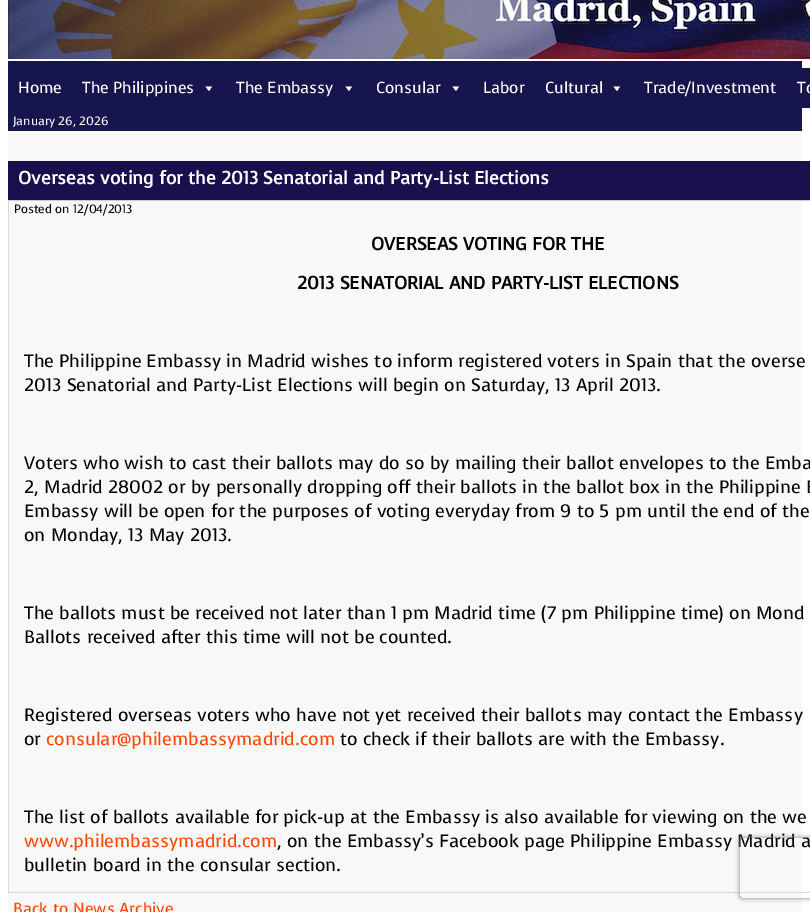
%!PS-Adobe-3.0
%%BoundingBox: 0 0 810 912
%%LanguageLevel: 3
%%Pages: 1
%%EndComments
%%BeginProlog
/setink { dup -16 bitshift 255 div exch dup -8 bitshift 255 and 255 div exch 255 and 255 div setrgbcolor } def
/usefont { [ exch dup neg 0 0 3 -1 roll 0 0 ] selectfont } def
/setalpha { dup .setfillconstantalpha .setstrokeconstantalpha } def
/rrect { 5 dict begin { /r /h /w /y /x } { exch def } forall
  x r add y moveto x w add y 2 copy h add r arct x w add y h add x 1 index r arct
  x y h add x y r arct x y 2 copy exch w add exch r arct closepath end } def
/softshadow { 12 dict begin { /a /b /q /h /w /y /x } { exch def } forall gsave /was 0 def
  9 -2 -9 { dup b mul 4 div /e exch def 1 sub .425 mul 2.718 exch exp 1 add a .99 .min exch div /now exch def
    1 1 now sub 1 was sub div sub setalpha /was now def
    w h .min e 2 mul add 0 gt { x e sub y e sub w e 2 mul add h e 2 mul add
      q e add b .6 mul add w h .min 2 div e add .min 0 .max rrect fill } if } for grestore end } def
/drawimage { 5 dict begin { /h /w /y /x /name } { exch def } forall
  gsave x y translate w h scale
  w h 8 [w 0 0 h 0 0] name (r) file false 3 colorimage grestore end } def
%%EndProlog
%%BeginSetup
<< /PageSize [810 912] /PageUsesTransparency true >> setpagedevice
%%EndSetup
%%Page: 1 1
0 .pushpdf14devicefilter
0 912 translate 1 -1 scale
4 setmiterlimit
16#FFFFFF setink
0 0 810 912 rectfill
16#F8F8F8 setink
8 131 794 781 rectfill
(img1.raw) 8 59 794 72 drawimage
(img2.raw) 8 0 802 59 drawimage
16#17154C setink
802 68 8 40 rectfill
/Voces-Regular 16 usefont
16#FFFFFF setink
18 93 moveto (Home) show
82 93 moveto (The Philippines) show
212 86.5 moveto 209 91 lineto 205.5 86.5 lineto closepath fill
236 93 moveto (The Embassy) show
352 86.5 moveto 349 91 lineto 345.5 86.5 lineto closepath fill
376 93 moveto (Consular) show
459 86.5 moveto 456 91 lineto 452.5 86.5 lineto closepath fill
483 93 moveto (Labor) show
545 93 moveto (Cultural) show
620 86.5 moveto 617 91 lineto 613.5 86.5 lineto closepath fill
644 93 moveto (Trade/Investment) show
797 93 moveto (To) show
/Voces-Regular 12 usefont
13 125 moveto (January 26, 2026) show
16#18104C setink
8 161 802 39 rectfill
16#CCCCCC setink
8 200 802 1 rectfill
/Voces-Bold 18 usefont
16#FFFFFF setink
18 184 moveto (Overseas voting for the 2013 Senatorial and Party-List Elections) show
16#D8D8D8 setink
8 201 1 16 rectfill
/Voces-Regular 12 usefont
16#000000 setink
14 213 moveto (Posted on 12/04/2013) show
16#D8D8D8 setink
8 892 802 1 rectfill
8 217 1 676 rectfill
/Voces-Bold 18 usefont
16#000000 setink
371 250 moveto (OVERSEAS VOTING FOR THE) show
297 289 moveto (2013 SENATORIAL AND PARTY-LIST ELECTIONS) show
/Voces-Regular 18 usefont
[
    [(The Philippine Embassy in Madrid wishes to inform registered voters in Spain that the overse) 24 367]
    [(2013 Senatorial and Party-List Elections will begin on Saturday, 13 April 2013.) 24 391]
    [(Voters who wish to cast their ballots may do so by mailing their ballot envelopes to the Emba) 24 469]
    [(2, Madrid 28002 or by personally dropping off their ballots in the ballot box in the Philippine E) 24 493]
    [(Embassy will be open for the purposes of voting everyday from 9 to 5 pm until the end of the) 24 517]
    [(on Monday, 13 May 2013.) 24 541]
    [(The ballots must be received not later than 1 pm Madrid time \(7 pm Philippine time\) on Mond) 24 619]
    [(Ballots received after this time will not be counted.) 24 643]
    [(Registered overseas voters who have not yet received their ballots may contact the Embassy) 24 721]
    [(or) 24 745]
] { aload pop moveto show } forall
16#FF4500 setink
46 745 moveto (consular@philembassymadrid.com) show
16#000000 setink
340 745 moveto (to check if their ballots are with the Embassy.) show
24 823 moveto (The list of ballots available for pick-up at the Embassy is also available for viewing on the we) show
16#FF4500 setink
24 847 moveto (www.philembassymadrid.com) show
16#000000 setink
277 847 moveto (, on the Embassy’s Facebook page Philippine Embassy Madrid a) show
24 871 moveto (bulletin board in the consular section.) show
/Voces-Regular 16 usefont
16#FF4500 setink
13 914 moveto (Back to News Archive) show
gsave
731 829 moveto 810 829 lineto 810 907 lineto 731 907 lineto closepath 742 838 moveto 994 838 lineto 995 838 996 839 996 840 curveto 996 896 lineto 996 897 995 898 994 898 curveto 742 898 lineto 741 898 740 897 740 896 curveto 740 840 lineto 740 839 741 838 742 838 curveto closepath eoclip newpath
16#808080 setink
740 838 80 60 2 2.5 1 softshadow
grestore
.poppdf14devicefilter showpage
%%EOF
